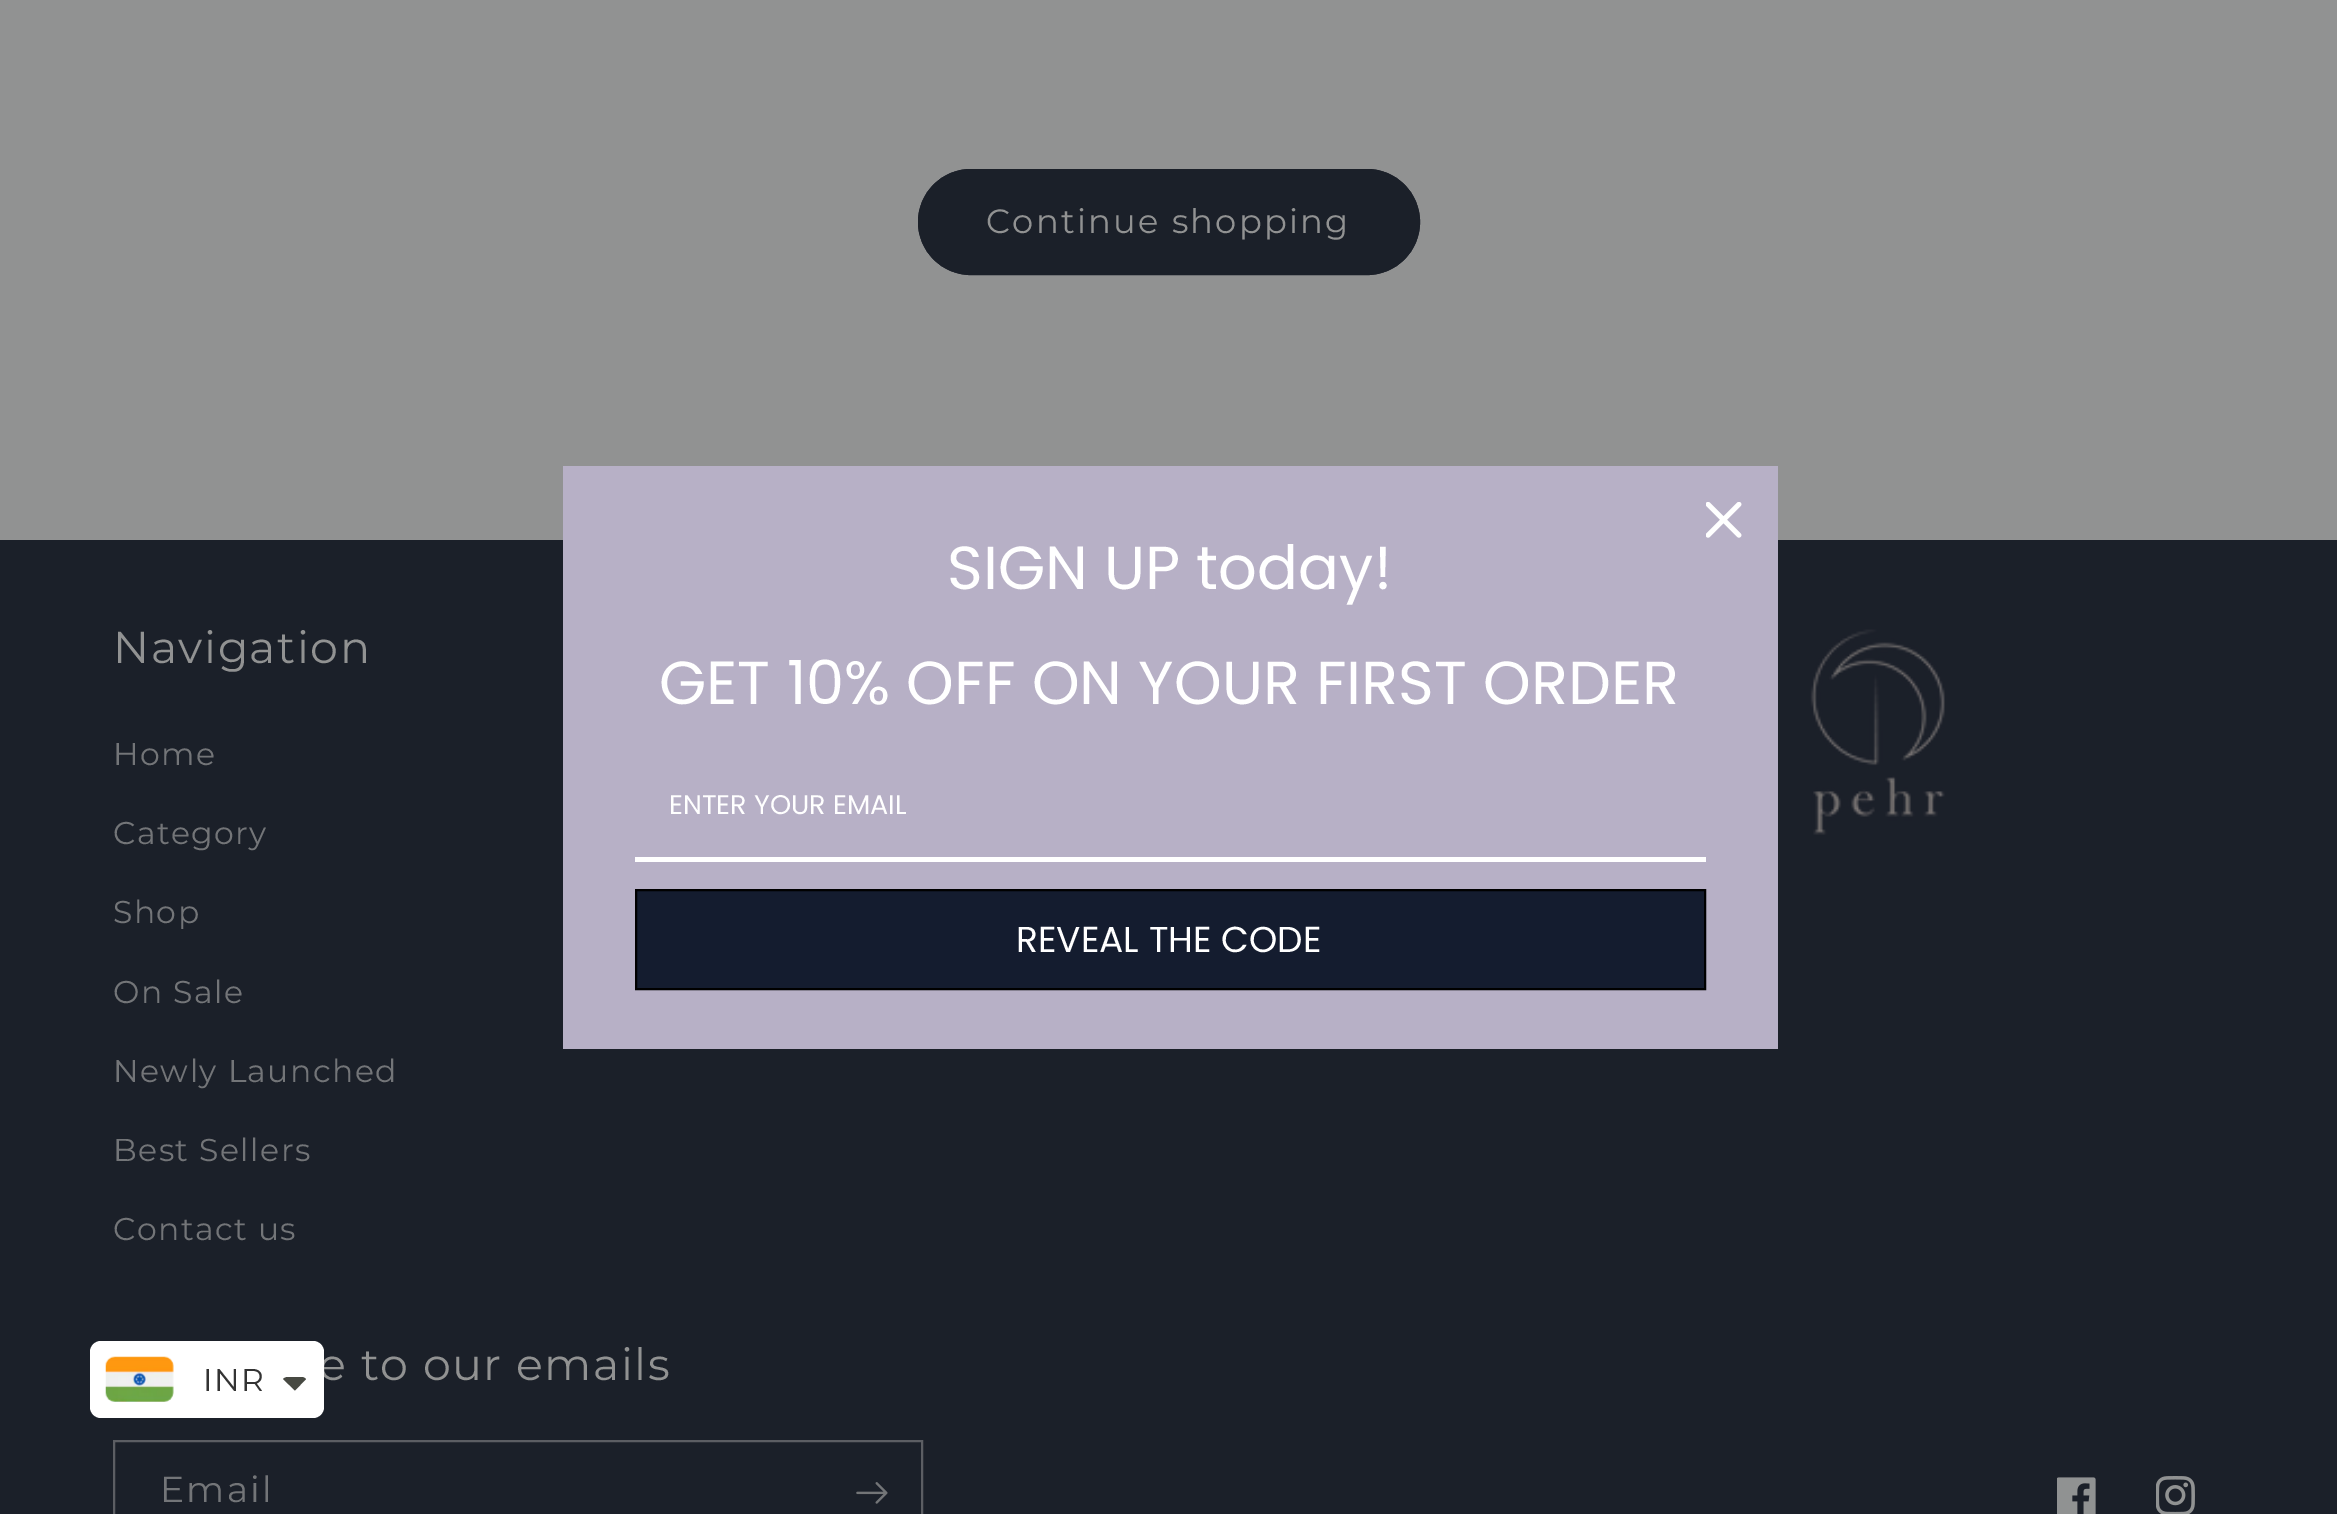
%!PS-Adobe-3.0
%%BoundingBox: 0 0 2337 1514
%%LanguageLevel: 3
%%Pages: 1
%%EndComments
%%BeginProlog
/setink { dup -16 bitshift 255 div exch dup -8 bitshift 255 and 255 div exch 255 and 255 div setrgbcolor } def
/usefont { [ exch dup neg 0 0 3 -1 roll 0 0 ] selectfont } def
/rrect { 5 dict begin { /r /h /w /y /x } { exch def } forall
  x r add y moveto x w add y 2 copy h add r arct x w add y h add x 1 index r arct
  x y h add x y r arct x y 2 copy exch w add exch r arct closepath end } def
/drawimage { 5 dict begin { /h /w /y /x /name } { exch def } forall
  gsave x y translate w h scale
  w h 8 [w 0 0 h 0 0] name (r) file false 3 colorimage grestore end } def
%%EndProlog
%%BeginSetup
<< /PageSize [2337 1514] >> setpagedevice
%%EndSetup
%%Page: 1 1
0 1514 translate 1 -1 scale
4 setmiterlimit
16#919292 setink
0 0 2337 1514 rectfill
16#1B2029 setink
918 169 502 106 53 rrect fill
2 setlinewidth
919 170 500 104 52 rrect stroke
/Montserrat-Regular 33.75 usefont
16#919292 setink
986 233 moveto 2.25 0 (Continue shopping) ashow
16#1B2029 setink
0 540 2337 974 rectfill
/Montserrat-Regular 44.5 usefont
16#919292 setink
113 663 moveto 1.5 0 (Navigation) ashow
/Montserrat-Regular 31.5 usefont
16#737578 setink
113 765 moveto 1.4 0 (Home) ashow
113 844 moveto 1.4 0 (Category) ashow
113 923 moveto 1.4 0 (Shop) ashow
113 1003 moveto 1.4 0 (On Sale) ashow
113 1082 moveto 1.4 0 (Newly Launched) ashow
113 1161 moveto 1.4 0 (Best Sellers) ashow
113 1240 moveto 1.4 0 (Contact us) ashow
(img1.raw) 1810 629 135 206 drawimage
/Montserrat-Regular 44.5 usefont
16#919292 setink
319 1380 moveto 1.5 0 (e to our emails) ashow
16#5C5E63 setink
114 1441 808 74 rectstroke
/Montserrat-Regular 36 usefont
16#737578 setink
160 1502 moveto 2.25 0 (Email) ashow
(img2.raw) 856 1482 32 22 drawimage
(img3.raw) 2057 1477 39 37 drawimage
(img4.raw) 2156 1476 39 38 drawimage
16#B7B0C6 setink
563 466 1215 583 rectfill
(img5.raw) 1706 502 36 36 drawimage
/Poppins-Regular 60.75 usefont
16#FFFFFF setink
947 589 moveto (SIGN UP today!) show
659 704 moveto (GET 10% OFF ON YOUR FIRST ORDER) show
635 857 1071 5 rectfill
/Poppins-Regular 27 usefont
669 814 moveto (ENTER YOUR EMAIL) show
16#141C2F setink
636 890 moveto 1705 890 lineto 1705 989 lineto 636 989 lineto closepath gsave fill grestore
16#000000 setink
stroke
/Poppins-Regular 36 usefont
16#FFFFFF setink
1016 952 moveto (REVEAL THE CODE) show
90 1341 234 77 11 rrect fill
(img6.raw) 105 1356 69 46 drawimage
/Montserrat-Regular 31.5 usefont
16#333333 setink
203 1391 moveto 1.4 0 (INR) ashow
16#474942 setink
288 1377 moveto 286.5 1377 284.5 1377.5 283 1379 curveto 295 1390.5 lineto 306 1379 lineto 305 1378 303.5 1377 301.5 1377 curveto closepath fill
showpage
%%EOF
